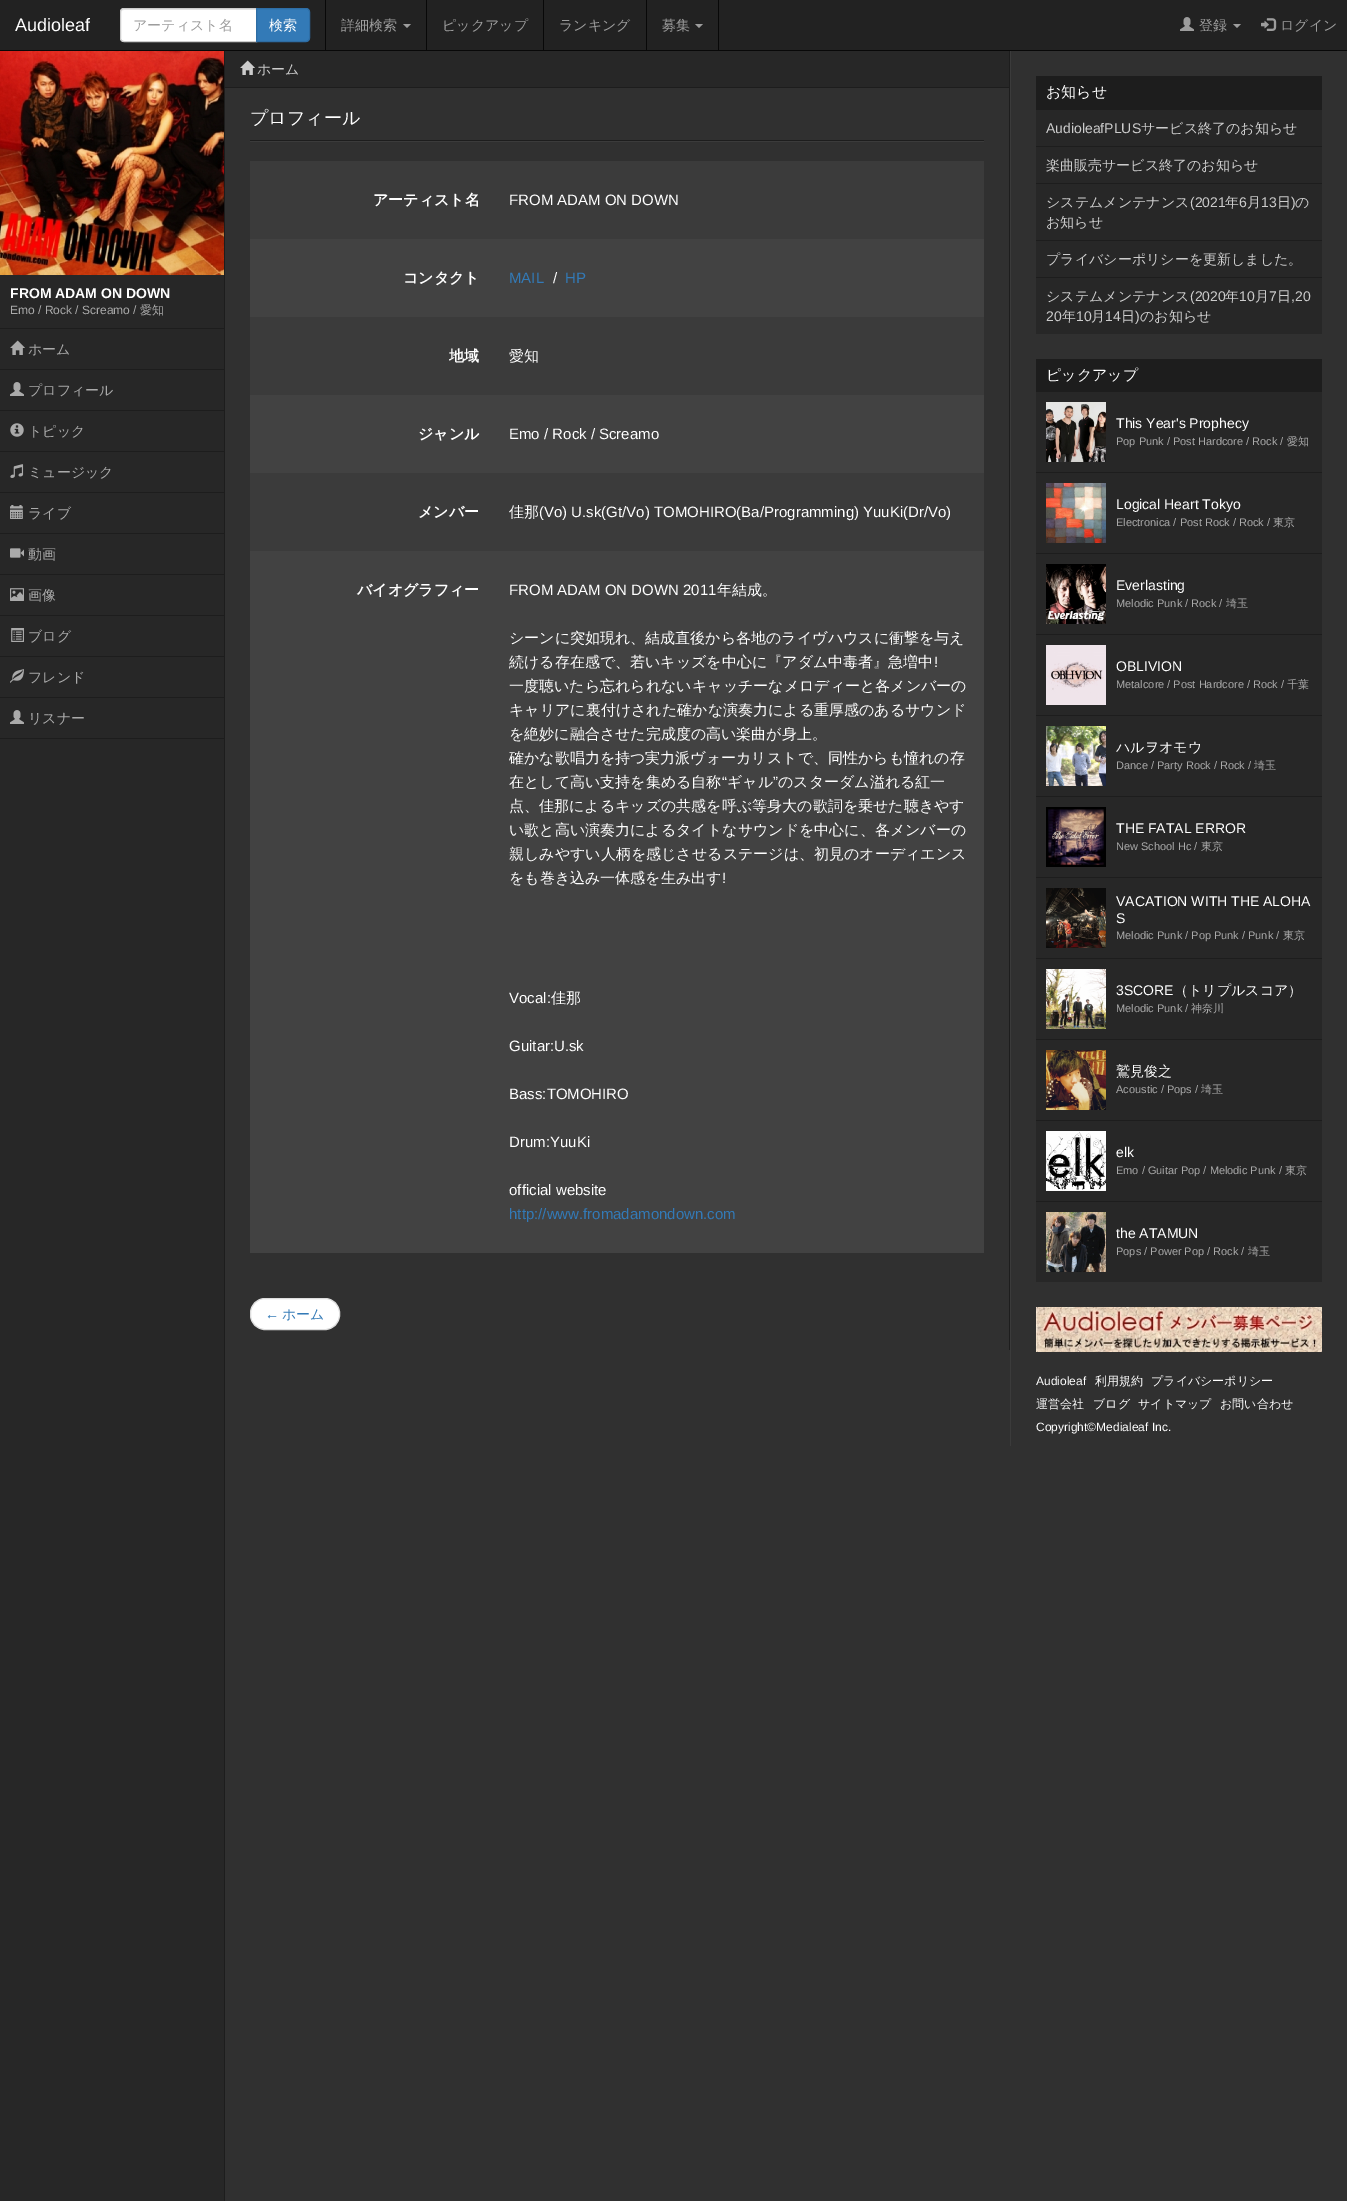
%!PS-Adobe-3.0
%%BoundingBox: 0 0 1347 2201
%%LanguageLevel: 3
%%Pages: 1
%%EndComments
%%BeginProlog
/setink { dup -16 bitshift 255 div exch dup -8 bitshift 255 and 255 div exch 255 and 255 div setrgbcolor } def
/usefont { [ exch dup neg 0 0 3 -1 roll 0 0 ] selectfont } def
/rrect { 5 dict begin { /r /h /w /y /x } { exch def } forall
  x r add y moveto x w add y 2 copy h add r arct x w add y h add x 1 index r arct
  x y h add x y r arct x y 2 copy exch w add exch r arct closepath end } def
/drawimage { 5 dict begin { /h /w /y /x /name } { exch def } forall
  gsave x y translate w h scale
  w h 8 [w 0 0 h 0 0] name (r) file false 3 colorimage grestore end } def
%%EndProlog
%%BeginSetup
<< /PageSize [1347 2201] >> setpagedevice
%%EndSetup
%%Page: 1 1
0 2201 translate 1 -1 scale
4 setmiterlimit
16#303030 setink
0 0 1347 2201 rectfill
16#222222 setink
0 0 1347 50 rectfill
16#080808 setink
0 50 1347 1 rectfill
/LiberationSans-Regular 18 usefont
16#FFFFFF setink
15 31 moveto (Audioleaf) show
124 8 moveto 257 8 lineto 257 42 lineto 124 42 lineto 122 42 120 40 120 38 curveto 120 12 lineto 120 10 122 8 124 8 curveto closepath fill
16#ECECEC setink
124 10 moveto 256 10 lineto 256 9 lineto 124 9 lineto 122 9 121 11 121 13 curveto 121 11 122 10 124 10 curveto closepath fill
16#CCCCCC setink
124 8.5 moveto 256.5 8.5 lineto 256.5 41.5 lineto 124 41.5 lineto 122 41.5 120.5 40 120.5 38 curveto 120.5 12 lineto 120.5 10 122 8.5 124 8.5 curveto closepath stroke
/WenQuanYiZenHei-Medium 14 usefont
16#9D9D9D setink
133 30 moveto (アーティスト名) show
16#337AB7 setink
256.5 8.5 moveto 306 8.5 lineto 308 8.5 309.5 10 309.5 12 curveto 309.5 38 lineto 309.5 40 308 41.5 306 41.5 curveto 256.5 41.5 lineto closepath gsave fill grestore
16#2E6DA4 setink
stroke
16#FFFFFF setink
269 30 moveto (検索) show
16#080808 setink
325 0 1 50 rectfill
426 0 1 50 rectfill
16#9D9D9D setink
341 30 moveto (詳細検索) show
403 24 moveto 411 24 lineto 407 28 lineto closepath fill
16#080808 setink
543 0 1 50 rectfill
16#9D9D9D setink
442 30 moveto (ピックアップ) show
16#080808 setink
646 0 1 50 rectfill
16#9D9D9D setink
559 30 moveto (ランキング) show
16#080808 setink
718 0 1 50 rectfill
16#9D9D9D setink
662 30 moveto (募集) show
695 24 moveto 703 24 lineto 699 28 lineto closepath fill
(img1.raw) 1180 17 14 14 drawimage
1199 30 moveto (登録) show
1233 24 moveto 1241 24 lineto 1237 28 lineto closepath fill
(img2.raw) 1261 18 16 13 drawimage
1280 30 moveto (ログイン) show
[
    [0 275 224 1926 16#272727]
    [224 51 1 2150 16#1D1D1D]
    [0 328 224 1 16#1D1D1D]
] { aload pop setink rectfill } forall
(img3.raw) 0 51 224 224 drawimage
/LiberationSans-Bold 14 usefont
16#FFFFFF setink
10 298 moveto (FROM ADAM ON DOWN) show
/LiberationSans-Regular 12 usefont
16#AAAAAA setink
10 314 moveto (Emo / Rock / Screamo /) show
/WenQuanYiZenHei-Medium 12 usefont
140 314 moveto (愛知) show
16#1D1D1D setink
0 369 224 1 rectfill
(img4.raw) 10 340 15 15 drawimage
/WenQuanYiZenHei-Medium 14 usefont
16#AAAAAA setink
28 354 moveto (ホーム) show
16#1D1D1D setink
0 410 224 1 rectfill
(img5.raw) 10 382 14 14 drawimage
16#AAAAAA setink
28 395 moveto (プロフィール) show
16#1D1D1D setink
0 451 224 1 rectfill
(img6.raw) 10 423 14 14 drawimage
16#AAAAAA setink
28 436 moveto (トピック) show
16#1D1D1D setink
0 492 224 1 rectfill
(img7.raw) 10 464 14 14 drawimage
16#AAAAAA setink
28 477 moveto (ミュージック) show
16#1D1D1D setink
0 533 224 1 rectfill
(img8.raw) 10 505 13 14 drawimage
16#AAAAAA setink
28 518 moveto (ライブ) show
16#1D1D1D setink
0 574 224 1 rectfill
(img9.raw) 10 548 14 10 drawimage
16#AAAAAA setink
28 559 moveto (動画) show
16#1D1D1D setink
0 615 224 1 rectfill
(img10.raw) 10 588 14 13 drawimage
16#AAAAAA setink
28 600 moveto (画像) show
16#1D1D1D setink
0 656 224 1 rectfill
(img11.raw) 11 628 13 14 drawimage
16#AAAAAA setink
28 641 moveto (ブログ) show
16#1D1D1D setink
0 697 224 1 rectfill
(img12.raw) 10 669 14 14 drawimage
16#AAAAAA setink
28 682 moveto (フレンド) show
16#1D1D1D setink
0 738 224 1 rectfill
(img5.raw) 10 710 14 14 drawimage
16#AAAAAA setink
28 723 moveto (リスナー) show
[
    [1009 51 1 1299 16#1D1D1D]
    [225 51 784 36 16#272727]
    [225 87 784 1 16#1D1D1D]
] { aload pop setink rectfill } forall
(img13.raw) 240 60 15 15 drawimage
16#CCCCCC setink
257 74 moveto (ホーム) show
16#3B3B3B setink
250 141 734 1 rectfill
16#1D1D1D setink
250 140 734 1 rectfill
/WenQuanYiZenHei-Medium 18 usefont
16#FFFFFF setink
250 124 moveto (プロフィール) show
16#3B3B3B setink
250 161 734 78 rectfill
/WenQuanYiZenHei-Bold 15 usefont
16#FFFFFF setink
373 205 moveto (アーティスト名) show
/LiberationSans-Regular 15 usefont
509 205 moveto (FROM ADAM ON DOWN) show
16#424242 setink
250 239 734 78 rectfill
/WenQuanYiZenHei-Bold 15 usefont
16#FFFFFF setink
403 283 moveto (コンタクト) show
/LiberationSans-Regular 15 usefont
16#337AB7 setink
509 283 moveto (MAIL) show
16#FFFFFF setink
553 283 moveto (/) show
16#337AB7 setink
565 283 moveto (HP) show
16#3B3B3B setink
250 317 734 78 rectfill
/WenQuanYiZenHei-Bold 15 usefont
16#FFFFFF setink
449 361 moveto (地域) show
/WenQuanYiZenHei-Medium 15 usefont
509 361 moveto (愛知) show
16#424242 setink
250 395 734 78 rectfill
/WenQuanYiZenHei-Bold 15 usefont
16#FFFFFF setink
418 439 moveto (ジャンル) show
/LiberationSans-Regular 15 usefont
509 439 moveto (Emo / Rock / Screamo) show
16#3B3B3B setink
250 473 734 78 rectfill
/WenQuanYiZenHei-Bold 15 usefont
16#FFFFFF setink
418 517 moveto (メンバー) show
/WenQuanYiZenHei-Medium 15 usefont
509 517 moveto (佳那) show
/LiberationSans-Regular 15 usefont
539 517 moveto (\(Vo\) U.sk\(Gt/Vo\) TOMOHIRO\(Ba/Programming\) YuuKi\(Dr/Vo\)) show
16#424242 setink
250 551 734 702 rectfill
/WenQuanYiZenHei-Bold 15 usefont
16#FFFFFF setink
357 595 moveto (バイオグラフィー) show
/LiberationSans-Regular 15 usefont
509 595 moveto (FROM ADAM ON DOWN 2011) show
/WenQuanYiZenHei-Medium 15 usefont
[
    [(年結成。) 717 595]
    [(シーンに突如現れ、結成直後から各地のライヴハウスに衝撃を与え) 509 643]
    [(続ける存在感で、若いキッズを中心に『アダム中毒者』急増中) 509 667]
] { aload pop moveto show } forall
/LiberationSans-Regular 15 usefont
934 667 moveto (!) show
/WenQuanYiZenHei-Medium 15 usefont
[
    [(一度聴いたら忘れられないキャッチーなメロディーと各メンバーの) 509 691]
    [(キャリアに裏付けされた確かな演奏力による重厚感のあるサウンド) 509 715]
    [(を絶妙に融合させた完成度の高い楽曲が身上。) 509 739]
    [(確かな歌唱力を持つ実力派ヴォーカリストで、同性からも憧れの存) 509 763]
    [(在として高い支持を集める自称) 509 787]
] { aload pop moveto show } forall
/LiberationSans-Regular 15 usefont
722 787 moveto (“) show
/WenQuanYiZenHei-Medium 15 usefont
727 787 moveto (ギャル) show
/LiberationSans-Regular 15 usefont
773 787 moveto (”) show
/WenQuanYiZenHei-Medium 15 usefont
[
    [(のスターダム溢れる紅一) 778 787]
    [(点、佳那によるキッズの共感を呼ぶ等身大の歌詞を乗せた聴きやす) 509 811]
    [(い歌と高い演奏力によるタイトなサウンドを中心に、各メンバーの) 509 835]
    [(親しみやすい人柄を感じさせるステージは、初見のオーディエンス) 509 859]
    [(をも巻き込み一体感を生み出す) 509 883]
] { aload pop moveto show } forall
/LiberationSans-Regular 15 usefont
722 883 moveto (!) show
509 1003 moveto (Vocal:) show
/WenQuanYiZenHei-Medium 15 usefont
551 1003 moveto (佳那) show
/LiberationSans-Regular 15 usefont
[
    [(Guitar:U.sk) 509 1051]
    [(Bass:TOMOHIRO) 509 1099]
    [(Drum:YuuKi) 509 1147]
    [(official website) 509 1195]
] { aload pop moveto show } forall
16#337AB7 setink
509 1219 moveto (http://www.fromadamondown.com) show
16#FFFFFF setink
250.5 1298.5 89 31 14.5 rrect gsave fill grestore
16#DDDDDD setink
stroke
/LiberationSans-Regular 14 usefont
16#337AB7 setink
265 1319 moveto (←) show
/WenQuanYiZenHei-Medium 14 usefont
282 1319 moveto (ホーム) show
16#3B3B3B setink
1010 51 1 1395 rectfill
16#1D1D1D setink
1036 76 286 34 rectfill
/WenQuanYiZenHei-Medium 15 usefont
16#FFFFFF setink
1046 97 moveto (お知らせ) show
16#272727 setink
1036 110 286 36 rectfill
/LiberationSans-Regular 14 usefont
16#CCCCCC setink
1046 133 moveto (AudioleafPLUS) show
/WenQuanYiZenHei-Medium 14 usefont
1141 133 moveto (サービス終了のお知らせ) show
16#272727 setink
1036 147 286 36 rectfill
16#1D1D1D setink
1036 146 286 1 rectfill
16#CCCCCC setink
1046 170 moveto (楽曲販売サービス終了のお知らせ) show
16#272727 setink
1036 184 286 56 rectfill
16#1D1D1D setink
1036 183 286 1 rectfill
16#CCCCCC setink
1046 207 moveto (システムメンテナンス) show
/LiberationSans-Regular 14 usefont
1190 207 moveto (\(2021) show
/WenQuanYiZenHei-Medium 14 usefont
1225 207 moveto (年) show
/LiberationSans-Regular 14 usefont
1239 207 moveto (6) show
/WenQuanYiZenHei-Medium 14 usefont
1247 207 moveto (月) show
/LiberationSans-Regular 14 usefont
1261 207 moveto (13) show
/WenQuanYiZenHei-Medium 14 usefont
1277 207 moveto (日) show
/LiberationSans-Regular 14 usefont
1291 207 moveto (\)) show
/WenQuanYiZenHei-Medium 14 usefont
1295 207 moveto (の) show
1046 227 moveto (お知らせ) show
16#272727 setink
1036 241 286 36 rectfill
16#1D1D1D setink
1036 240 286 1 rectfill
16#CCCCCC setink
1046 264 moveto (プライバシーポリシーを更新しました。) show
16#272727 setink
1036 278 286 56 rectfill
16#1D1D1D setink
1036 277 286 1 rectfill
16#CCCCCC setink
1046 301 moveto (システムメンテナンス) show
/LiberationSans-Regular 14 usefont
1190 301 moveto (\(2020) show
/WenQuanYiZenHei-Medium 14 usefont
1225 301 moveto (年) show
/LiberationSans-Regular 14 usefont
1239 301 moveto (10) show
/WenQuanYiZenHei-Medium 14 usefont
1255 301 moveto (月) show
/LiberationSans-Regular 14 usefont
1269 301 moveto (7) show
/WenQuanYiZenHei-Medium 14 usefont
1277 301 moveto (日) show
/LiberationSans-Regular 14 usefont
1291 301 moveto (,20) show
1046 321 moveto (20) show
/WenQuanYiZenHei-Medium 14 usefont
1062 321 moveto (年) show
/LiberationSans-Regular 14 usefont
1076 321 moveto (10) show
/WenQuanYiZenHei-Medium 14 usefont
1091 321 moveto (月) show
/LiberationSans-Regular 14 usefont
1105 321 moveto (14) show
/WenQuanYiZenHei-Medium 14 usefont
1121 321 moveto (日) show
/LiberationSans-Regular 14 usefont
1135 321 moveto (\)) show
/WenQuanYiZenHei-Medium 14 usefont
1140 321 moveto (のお知らせ) show
16#1D1D1D setink
1036 359 286 33 rectfill
/WenQuanYiZenHei-Medium 15 usefont
16#FFFFFF setink
1046 380 moveto (ピックアップ) show
16#272727 setink
1036 392 286 80 rectfill
(img14.raw) 1046 402 60 60 drawimage
/LiberationSans-Regular 14 usefont
16#FFFFFF setink
1116 428 moveto (This Year's Prophecy) show
/LiberationSans-Regular 11 usefont
16#AAAAAA setink
1116 445 moveto (Pop Punk / Post Hardcore / Rock /) show
/WenQuanYiZenHei-Medium 11 usefont
1287 445 moveto (愛知) show
16#272727 setink
1036 473 286 80 rectfill
16#1D1D1D setink
1036 472 286 1 rectfill
(img15.raw) 1046 483 60 60 drawimage
/LiberationSans-Regular 14 usefont
16#FFFFFF setink
1116 509 moveto (Logical Heart Tokyo) show
/LiberationSans-Regular 11 usefont
16#AAAAAA setink
1116 526 moveto (Electronica / Post Rock / Rock /) show
/WenQuanYiZenHei-Medium 11 usefont
1273 526 moveto (東京) show
16#272727 setink
1036 554 286 80 rectfill
16#1D1D1D setink
1036 553 286 1 rectfill
(img16.raw) 1046 564 60 60 drawimage
/LiberationSans-Regular 14 usefont
16#FFFFFF setink
1116 590 moveto (Everlasting) show
/LiberationSans-Regular 11 usefont
16#AAAAAA setink
1116 607 moveto (Melodic Punk / Rock /) show
/WenQuanYiZenHei-Medium 11 usefont
1226 607 moveto (埼玉) show
16#272727 setink
1036 635 286 80 rectfill
16#1D1D1D setink
1036 634 286 1 rectfill
(img17.raw) 1046 645 60 60 drawimage
/LiberationSans-Regular 14 usefont
16#FFFFFF setink
1116 671 moveto (OBLIVION) show
/LiberationSans-Regular 11 usefont
16#AAAAAA setink
1116 688 moveto (Metalcore / Post Hardcore / Rock /) show
/WenQuanYiZenHei-Medium 11 usefont
1287 688 moveto (千葉) show
16#272727 setink
1036 716 286 80 rectfill
16#1D1D1D setink
1036 715 286 1 rectfill
(img18.raw) 1046 726 60 60 drawimage
/WenQuanYiZenHei-Medium 14 usefont
16#FFFFFF setink
1116 752 moveto (ハルヲオモウ) show
/LiberationSans-Regular 11 usefont
16#AAAAAA setink
1116 769 moveto (Dance / Party Rock / Rock /) show
/WenQuanYiZenHei-Medium 11 usefont
1254 769 moveto (埼玉) show
16#272727 setink
1036 797 286 80 rectfill
16#1D1D1D setink
1036 796 286 1 rectfill
(img19.raw) 1046 807 60 60 drawimage
/LiberationSans-Regular 14 usefont
16#FFFFFF setink
1116 833 moveto (THE FATAL ERROR) show
/LiberationSans-Regular 11 usefont
16#AAAAAA setink
1116 850 moveto (New School Hc /) show
/WenQuanYiZenHei-Medium 11 usefont
1201 850 moveto (東京) show
16#272727 setink
1036 878 286 80 rectfill
16#1D1D1D setink
1036 877 286 1 rectfill
(img20.raw) 1046 888 60 60 drawimage
/LiberationSans-Regular 14 usefont
16#FFFFFF setink
1116 906 moveto (VACATION WITH THE ALOHA) show
1116 923 moveto (S) show
/LiberationSans-Regular 11 usefont
16#AAAAAA setink
1116 939 moveto (Melodic Punk / Pop Punk / Punk /) show
/WenQuanYiZenHei-Medium 11 usefont
1283 939 moveto (東京) show
16#272727 setink
1036 959 286 80 rectfill
16#1D1D1D setink
1036 958 286 1 rectfill
(img21.raw) 1046 969 60 60 drawimage
/LiberationSans-Regular 14 usefont
16#FFFFFF setink
1116 995 moveto (3SCORE) show
/WenQuanYiZenHei-Medium 14 usefont
1174 995 moveto (（トリプルスコア）) show
/LiberationSans-Regular 11 usefont
16#AAAAAA setink
1116 1012 moveto (Melodic Punk /) show
/WenQuanYiZenHei-Medium 11 usefont
1191 1012 moveto (神奈川) show
16#272727 setink
1036 1040 286 80 rectfill
16#1D1D1D setink
1036 1039 286 1 rectfill
(img22.raw) 1046 1050 60 60 drawimage
/WenQuanYiZenHei-Medium 14 usefont
16#FFFFFF setink
1116 1076 moveto (鷲見俊之) show
/LiberationSans-Regular 11 usefont
16#AAAAAA setink
1116 1093 moveto (Acoustic / Pops /) show
/WenQuanYiZenHei-Medium 11 usefont
1201 1093 moveto (埼玉) show
16#272727 setink
1036 1121 286 80 rectfill
16#1D1D1D setink
1036 1120 286 1 rectfill
(img23.raw) 1046 1131 60 60 drawimage
/LiberationSans-Regular 14 usefont
16#FFFFFF setink
1116 1157 moveto (elk) show
/LiberationSans-Regular 11 usefont
16#AAAAAA setink
1116 1174 moveto (Emo / Guitar Pop / Melodic Punk /) show
/WenQuanYiZenHei-Medium 11 usefont
1285 1174 moveto (東京) show
16#272727 setink
1036 1202 286 80 rectfill
16#1D1D1D setink
1036 1201 286 1 rectfill
(img24.raw) 1046 1212 60 60 drawimage
/LiberationSans-Regular 14 usefont
16#FFFFFF setink
1116 1238 moveto (the ATAMUN) show
/LiberationSans-Regular 11 usefont
16#AAAAAA setink
1116 1255 moveto (Pops / Power Pop / Rock /) show
/WenQuanYiZenHei-Medium 11 usefont
1248 1255 moveto (埼玉) show
(img25.raw) 1036 1307 286 45 drawimage
/LiberationSans-Regular 12 usefont
16#FFFFFF setink
1036 1385 moveto (Audioleaf) show
/WenQuanYiZenHei-Medium 12 usefont
[
    [(利用規約) 1095 1385]
    [(プライバシーポリシー) 1151 1385]
    [(運営会社) 1036 1408]
    [(ブログ) 1093 1408]
    [(サイトマップ) 1138 1408]
    [(お問い合わせ) 1220 1408]
] { aload pop moveto show } forall
/LiberationSans-Regular 12 usefont
1036 1431 moveto (Copyright©Medialeaf Inc.) show
showpage
%%EOF
